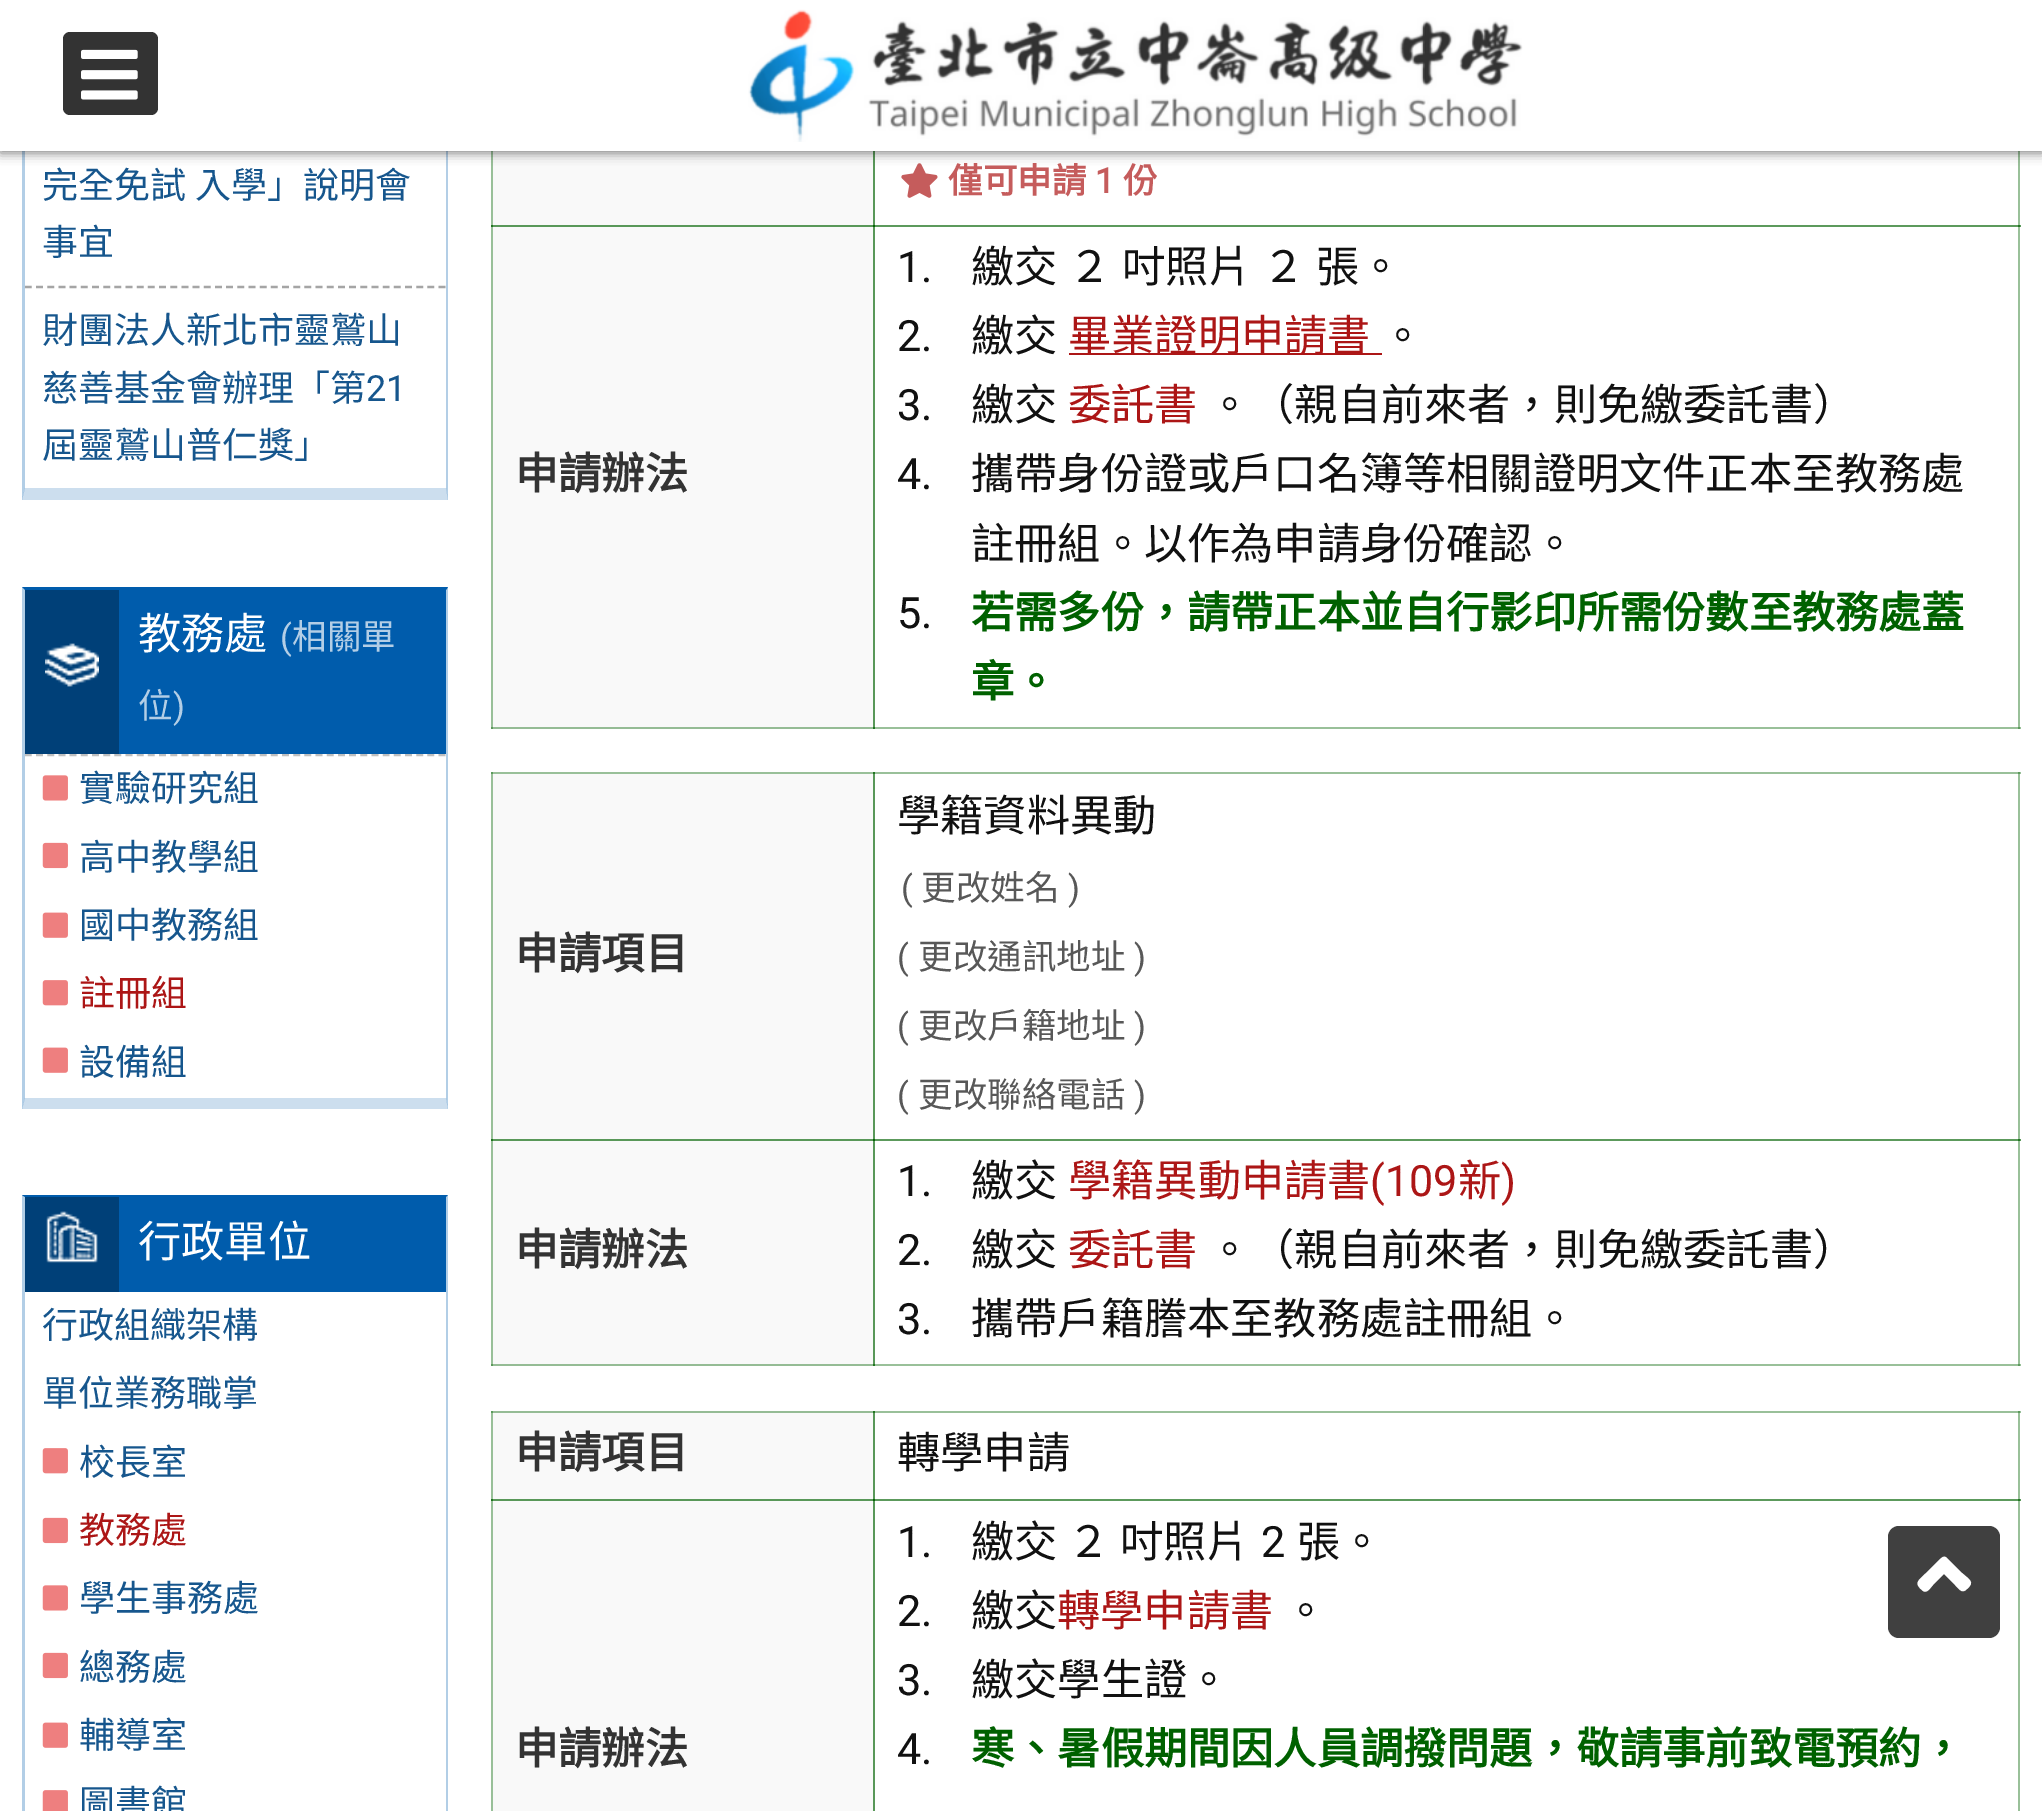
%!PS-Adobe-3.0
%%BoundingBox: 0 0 2042 1811
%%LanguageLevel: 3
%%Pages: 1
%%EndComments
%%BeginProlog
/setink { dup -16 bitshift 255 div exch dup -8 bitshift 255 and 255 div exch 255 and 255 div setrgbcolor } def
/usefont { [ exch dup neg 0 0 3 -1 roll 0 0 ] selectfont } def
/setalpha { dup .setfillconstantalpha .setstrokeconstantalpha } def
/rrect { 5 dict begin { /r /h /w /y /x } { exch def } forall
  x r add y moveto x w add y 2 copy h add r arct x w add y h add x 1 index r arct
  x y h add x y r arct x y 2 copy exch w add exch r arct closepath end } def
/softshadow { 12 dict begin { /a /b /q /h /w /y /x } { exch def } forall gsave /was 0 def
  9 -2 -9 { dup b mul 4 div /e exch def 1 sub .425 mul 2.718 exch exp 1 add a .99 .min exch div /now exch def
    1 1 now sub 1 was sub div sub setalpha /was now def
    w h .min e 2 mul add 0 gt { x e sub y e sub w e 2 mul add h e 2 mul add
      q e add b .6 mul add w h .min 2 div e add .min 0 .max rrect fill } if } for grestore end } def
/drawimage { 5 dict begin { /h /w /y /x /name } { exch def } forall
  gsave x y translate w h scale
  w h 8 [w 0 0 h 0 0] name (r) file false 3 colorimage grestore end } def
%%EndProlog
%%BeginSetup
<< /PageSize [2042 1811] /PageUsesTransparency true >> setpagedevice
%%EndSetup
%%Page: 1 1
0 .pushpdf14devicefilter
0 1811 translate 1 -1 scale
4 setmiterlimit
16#FFFFFF setink
0 0 2042 1811 rectfill
[
    [491 1411 2 400 16#99C099]
    [491 1411 2 2 16#5C9A5C]
    [2018 1411 2 400 16#99C099]
    [873 1411 1148 2 16#99C099]
    [2018 1411 2 2 16#5C9A5C]
    [491 1499 2 2 16#217521]
    [873 1499 1148 2 16#5C9A5C]
    [2018 1499 2 2 16#217521]
    [491 772 2 594 16#99C099]
    [491 772 384 2 16#99C099]
    [491 772 2 2 16#5C9A5C]
    [2018 772 2 369 16#99C099]
    [491 1364 2 2 16#5C9A5C]
    [491 1139 2 2 16#217521]
    [873 1364 1148 2 16#99C099]
    [2018 1139 2 227 16#99C099]
    [2018 1364 2 2 16#5C9A5C]
    [873 1139 1148 2 16#5C9A5C]
    [2018 1139 2 2 16#217521]
    [491 151 2 578 16#99C099]
    [2018 151 2 76 16#99C099]
    [491 727 2 2 16#5C9A5C]
    [491 225 2 2 16#217521]
    [873 727 1148 2 16#99C099]
    [2018 225 2 504 16#99C099]
    [2018 727 2 2 16#5C9A5C]
    [873 225 1148 2 16#5C9A5C]
    [2018 225 2 2 16#217521]
] { aload pop setink rectfill } forall
16#B3CEE6 setink
448 -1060 moveto 448 500 lineto 446 488 lineto 446 -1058 lineto closepath fill
0.2 setalpha
16#005CAC setink
448 500 moveto 22 500 lineto 25 488 lineto 446 488 lineto closepath fill
0.3 setalpha
22 500 moveto 22 -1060 lineto 25 -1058 lineto 25 488 lineto closepath fill
1 setalpha
16#F9F9F9 setink
493 151 380 74 rectfill
16#599859 setink
873 151 2 74 rectfill
(img10.raw) 901 163 37 35 drawimage
16#000000 setink
0 2 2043 151 0 5.5 0.5 softshadow
16#FFFFFF setink
0 0 2042 151 rectfill
16#333333 setink
63 32 95 83 7 rrect fill
(img1.raw) 81 49 57 51 drawimage
(img2.raw) 748 9 775 133 drawimage
16#A5A5A5 setink
2.2 setlinewidth
[6.75 4.43] 0 setdash
25 287 moveto 445.5 287 lineto stroke
/NotoSansCJKTC-Regular 36 usefont
16#16568D setink
42 198 moveto 1 0 32 (完全免試 入學」說明會) widthshow
[
    [(事宜) 42 255]
    [(財團法人新北市靈鷲山) 42 343]
    [(慈善基金會辦理「第) 42 401]
] { aload pop moveto show } forall
/Roboto-Regular 36 usefont
366 401 moveto (21) show
/NotoSansCJKTC-Regular 36 usefont
42 458 moveto (屆靈鷲山普仁獎」) show
16#005CAC setink
22 587 moveto 448 587 lineto 446 590 lineto 25 590 lineto closepath fill
0.3 setalpha
448 587 moveto 448 1109 lineto 446 1098 lineto 446 590 lineto closepath fill
0.2 setalpha
448 1109 moveto 22 1109 lineto 25 1098 lineto 446 1098 lineto closepath fill
0.3 setalpha
22 1109 moveto 22 587 lineto 25 590 lineto 25 1098 lineto closepath fill
1 setalpha
16#BFBFBF setink
25 755 moveto 445.5 755 lineto stroke
16#005CAC setink
119 590 327 164 rectfill
16#004078 setink
25 590 94 164 rectfill
/NotoSansCJKTC-Regular 43.2 usefont
16#FFFFFF setink
138 649 moveto (教務處) show
/Roboto-Regular 34.5 usefont
16#B3CEE6 setink
280 649 moveto (\() show
/NotoSansCJKTC-Regular 34.5 usefont
292 649 moveto (相關單) show
(img3.raw) 45 643 54 44 drawimage
138 718 moveto (位) show
/Roboto-Regular 34.5 usefont
173 718 moveto (\)) show
(img4.raw) 42 775 26 26 drawimage
/NotoSansCJKTC-Regular 36 usefont
16#16568D setink
79 801 moveto (實驗研究組) show
(img5.raw) 42 842 26 27 drawimage
79 870 moveto (高中教學組) show
(img6.raw) 42 912 26 26 drawimage
79 938 moveto (國中教務組) show
(img7.raw) 42 980 26 26 drawimage
16#AC1616 setink
79 1006 moveto (註冊組) show
(img6.raw) 42 1047 26 26 drawimage
16#16568D setink
79 1075 moveto (設備組) show
16#005CAC setink
22 1195 moveto 448 1195 lineto 446 1197 lineto 25 1197 lineto closepath fill
0.3 setalpha
448 1195 moveto 448 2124 lineto 446 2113 lineto 446 1197 lineto closepath fill
22 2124 moveto 22 1195 lineto 25 1197 lineto 25 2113 lineto closepath fill
1 setalpha
119 1197 327 95 rectfill
16#004078 setink
25 1197 94 95 rectfill
(img8.raw) 46 1211 52 52 drawimage
/NotoSansCJKTC-Regular 43.2 usefont
16#FFFFFF setink
138 1257 moveto (行政單位) show
/NotoSansCJKTC-Regular 36 usefont
16#16568D setink
42 1338 moveto (行政組織架構) show
42 1406 moveto (單位業務職掌) show
(img7.raw) 42 1448 26 26 drawimage
79 1475 moveto (校長室) show
(img5.raw) 42 1517 26 27 drawimage
16#AC1616 setink
79 1543 moveto (教務處) show
(img4.raw) 42 1585 26 26 drawimage
16#16568D setink
79 1611 moveto (學生事務處) show
(img5.raw) 42 1652 26 27 drawimage
79 1680 moveto (總務處) show
(img6.raw) 42 1722 26 26 drawimage
79 1748 moveto (輔導室) show
(img9.raw) 42 1790 26 21 drawimage
79 1816 moveto (圖書館) show
/NotoSansCJKTC-Bold 34.5 usefont
16#C55C5C setink
948 193 moveto (僅可申請) show
/Roboto-Bold 34.5 usefont
1095 193 moveto (1) show
/NotoSansCJKTC-Bold 34.5 usefont
1123 193 moveto (份) show
[
    [493 227 380 500 16#F9F9F9]
    [493 727 382 2 16#95BC95]
    [493 225 382 2 16#599859]
    [873 225 2 504 16#599859]
    [873 727 2 2 16#207520]
    [873 225 2 2 16#046304]
] { aload pop setink rectfill } forall
/NotoSansCJKTC-Bold 43.2 usefont
16#333333 setink
515 489 moveto (申請辦法) show
/Roboto-Regular 43.2 usefont
16#111111 setink
897 282 moveto (1.) show
/NotoSansCJKTC-Regular 43.2 usefont
971 282 moveto 1 0 32 (繳交 ２ 吋照片 ２ 張。) widthshow
/Roboto-Regular 43.2 usefont
897 351 moveto (2.) show
/NotoSansCJKTC-Regular 43.2 usefont
971 351 moveto (繳交) show
16#AC1616 setink
1069 353 313 2 rectfill
1068 351 moveto (畢業證明申請書) show
16#111111 setink
1381 351 moveto (。) show
/Roboto-Regular 43.2 usefont
897 420 moveto (3.) show
/NotoSansCJKTC-Regular 43.2 usefont
971 420 moveto (繳交) show
16#AC1616 setink
1068 420 moveto (委託書) show
16#111111 setink
1208 420 moveto (。（親自前來者，則免繳委託書）) show
/Roboto-Regular 43.2 usefont
897 489 moveto (4.) show
/NotoSansCJKTC-Regular 43.2 usefont
971 489 moveto (攜帶身份證或戶口名簿等相關證明文件正本至教務處) show
971 559 moveto (註冊組。以作為申請身份確認。) show
/Roboto-Regular 43.2 usefont
897 628 moveto (5.) show
/NotoSansCJKTC-Bold 43.2 usefont
16#006100 setink
971 628 moveto (若需多份，請帶正本並自行影印所需份數至教務處蓋) show
971 697 moveto (章。) show
16#F9F9F9 setink
493 774 380 365 rectfill
16#599859 setink
873 774 2 365 rectfill
16#333333 setink
515 969 moveto (申請項目) show
[
    [873 772 1148 2 16#99C099]
    [873 772 2 2 16#217521]
    [2018 772 2 2 16#5C9A5C]
] { aload pop setink rectfill } forall
/NotoSansCJKTC-Regular 43.2 usefont
16#111111 setink
897 831 moveto (學籍資料異動) show
/Roboto-Regular 34.5 usefont
16#585858 setink
901 900 moveto (\() show
/NotoSansCJKTC-Regular 34.5 usefont
921 900 moveto (更改姓名) show
/Roboto-Regular 34.5 usefont
1068 900 moveto (\)) show
897 969 moveto (\() show
/NotoSansCJKTC-Regular 34.5 usefont
918 969 moveto (更改通訊地址) show
/Roboto-Regular 34.5 usefont
1134 969 moveto (\)) show
897 1038 moveto (\() show
/NotoSansCJKTC-Regular 34.5 usefont
918 1038 moveto (更改戶籍地址) show
/Roboto-Regular 34.5 usefont
1134 1038 moveto (\)) show
897 1107 moveto (\() show
/NotoSansCJKTC-Regular 34.5 usefont
918 1107 moveto (更改聯絡電話) show
/Roboto-Regular 34.5 usefont
1134 1107 moveto (\)) show
[
    [493 1141 380 223 16#F9F9F9]
    [493 1364 382 2 16#95BC95]
    [493 1139 382 2 16#599859]
    [873 1139 2 227 16#599859]
    [873 1364 2 2 16#207520]
    [873 1139 2 2 16#046304]
] { aload pop setink rectfill } forall
/NotoSansCJKTC-Bold 43.2 usefont
16#333333 setink
515 1265 moveto (申請辦法) show
/Roboto-Regular 43.2 usefont
16#111111 setink
897 1196 moveto (1.) show
/NotoSansCJKTC-Regular 43.2 usefont
971 1196 moveto (繳交) show
16#AC1616 setink
1068 1196 moveto (學籍異動申請書) show
/Roboto-Regular 43.2 usefont
1370 1196 moveto (\(109) show
/NotoSansCJKTC-Regular 43.2 usefont
1458 1196 moveto (新) show
/Roboto-Regular 43.2 usefont
1501 1196 moveto (\)) show
16#111111 setink
897 1265 moveto (2.) show
/NotoSansCJKTC-Regular 43.2 usefont
971 1265 moveto (繳交) show
16#AC1616 setink
1068 1265 moveto (委託書) show
16#111111 setink
1208 1265 moveto (。（親自前來者，則免繳委託書）) show
/Roboto-Regular 43.2 usefont
897 1334 moveto (3.) show
/NotoSansCJKTC-Regular 43.2 usefont
971 1334 moveto (攜帶戶籍謄本至教務處註冊組。) show
[
    [493 1413 380 86 16#F9F9F9]
    [493 1411 382 2 16#95BC95]
    [873 1411 2 400 16#599859]
    [873 1411 2 2 16#207520]
    [493 1499 382 2 16#599859]
    [873 1499 2 2 16#046304]
] { aload pop setink rectfill } forall
/NotoSansCJKTC-Bold 43.2 usefont
16#333333 setink
515 1468 moveto (申請項目) show
/NotoSansCJKTC-Regular 43.2 usefont
16#111111 setink
897 1468 moveto (轉學申請) show
16#F9F9F9 setink
493 1501 380 310 rectfill
/NotoSansCJKTC-Bold 43.2 usefont
16#333333 setink
515 1764 moveto (申請辦法) show
/Roboto-Regular 43.2 usefont
16#111111 setink
897 1557 moveto (1.) show
/NotoSansCJKTC-Regular 43.2 usefont
971 1557 moveto (繳交 ２ 吋照片) show
/Roboto-Regular 43.2 usefont
1261 1557 moveto (2) show
/NotoSansCJKTC-Regular 43.2 usefont
1297 1557 moveto (張。) show
/Roboto-Regular 43.2 usefont
897 1626 moveto (2.) show
/NotoSansCJKTC-Regular 43.2 usefont
971 1626 moveto (繳交) show
16#AC1616 setink
1057 1626 moveto (轉學申請書) show
16#111111 setink
1284 1626 moveto (。) show
/Roboto-Regular 43.2 usefont
897 1695 moveto (3.) show
/NotoSansCJKTC-Regular 43.2 usefont
971 1695 moveto (繳交學生證。) show
/Roboto-Regular 43.2 usefont
897 1764 moveto (4.) show
/NotoSansCJKTC-Bold 43.2 usefont
16#006100 setink
971 1764 moveto (寒、暑假期間因人員調撥問題，敬請事前致電預約，) show
16#404040 setink
1888 1526 112 112 11 rrect fill
16#FFFFFF setink
1947 1558 moveto 1962 1573 lineto 1970 1580 1975 1582 1967 1589 curveto 1962 1594 1960 1590 1955 1585 curveto 1944 1574 lineto 1933 1585 lineto 1931 1587 1927 1594 1923 1591 curveto 1913 1583 1918 1581 1926 1573 curveto 1937 1562 lineto 1940 1560 1943 1554 1947 1558 curveto closepath fill
.poppdf14devicefilter showpage
%%EOF
